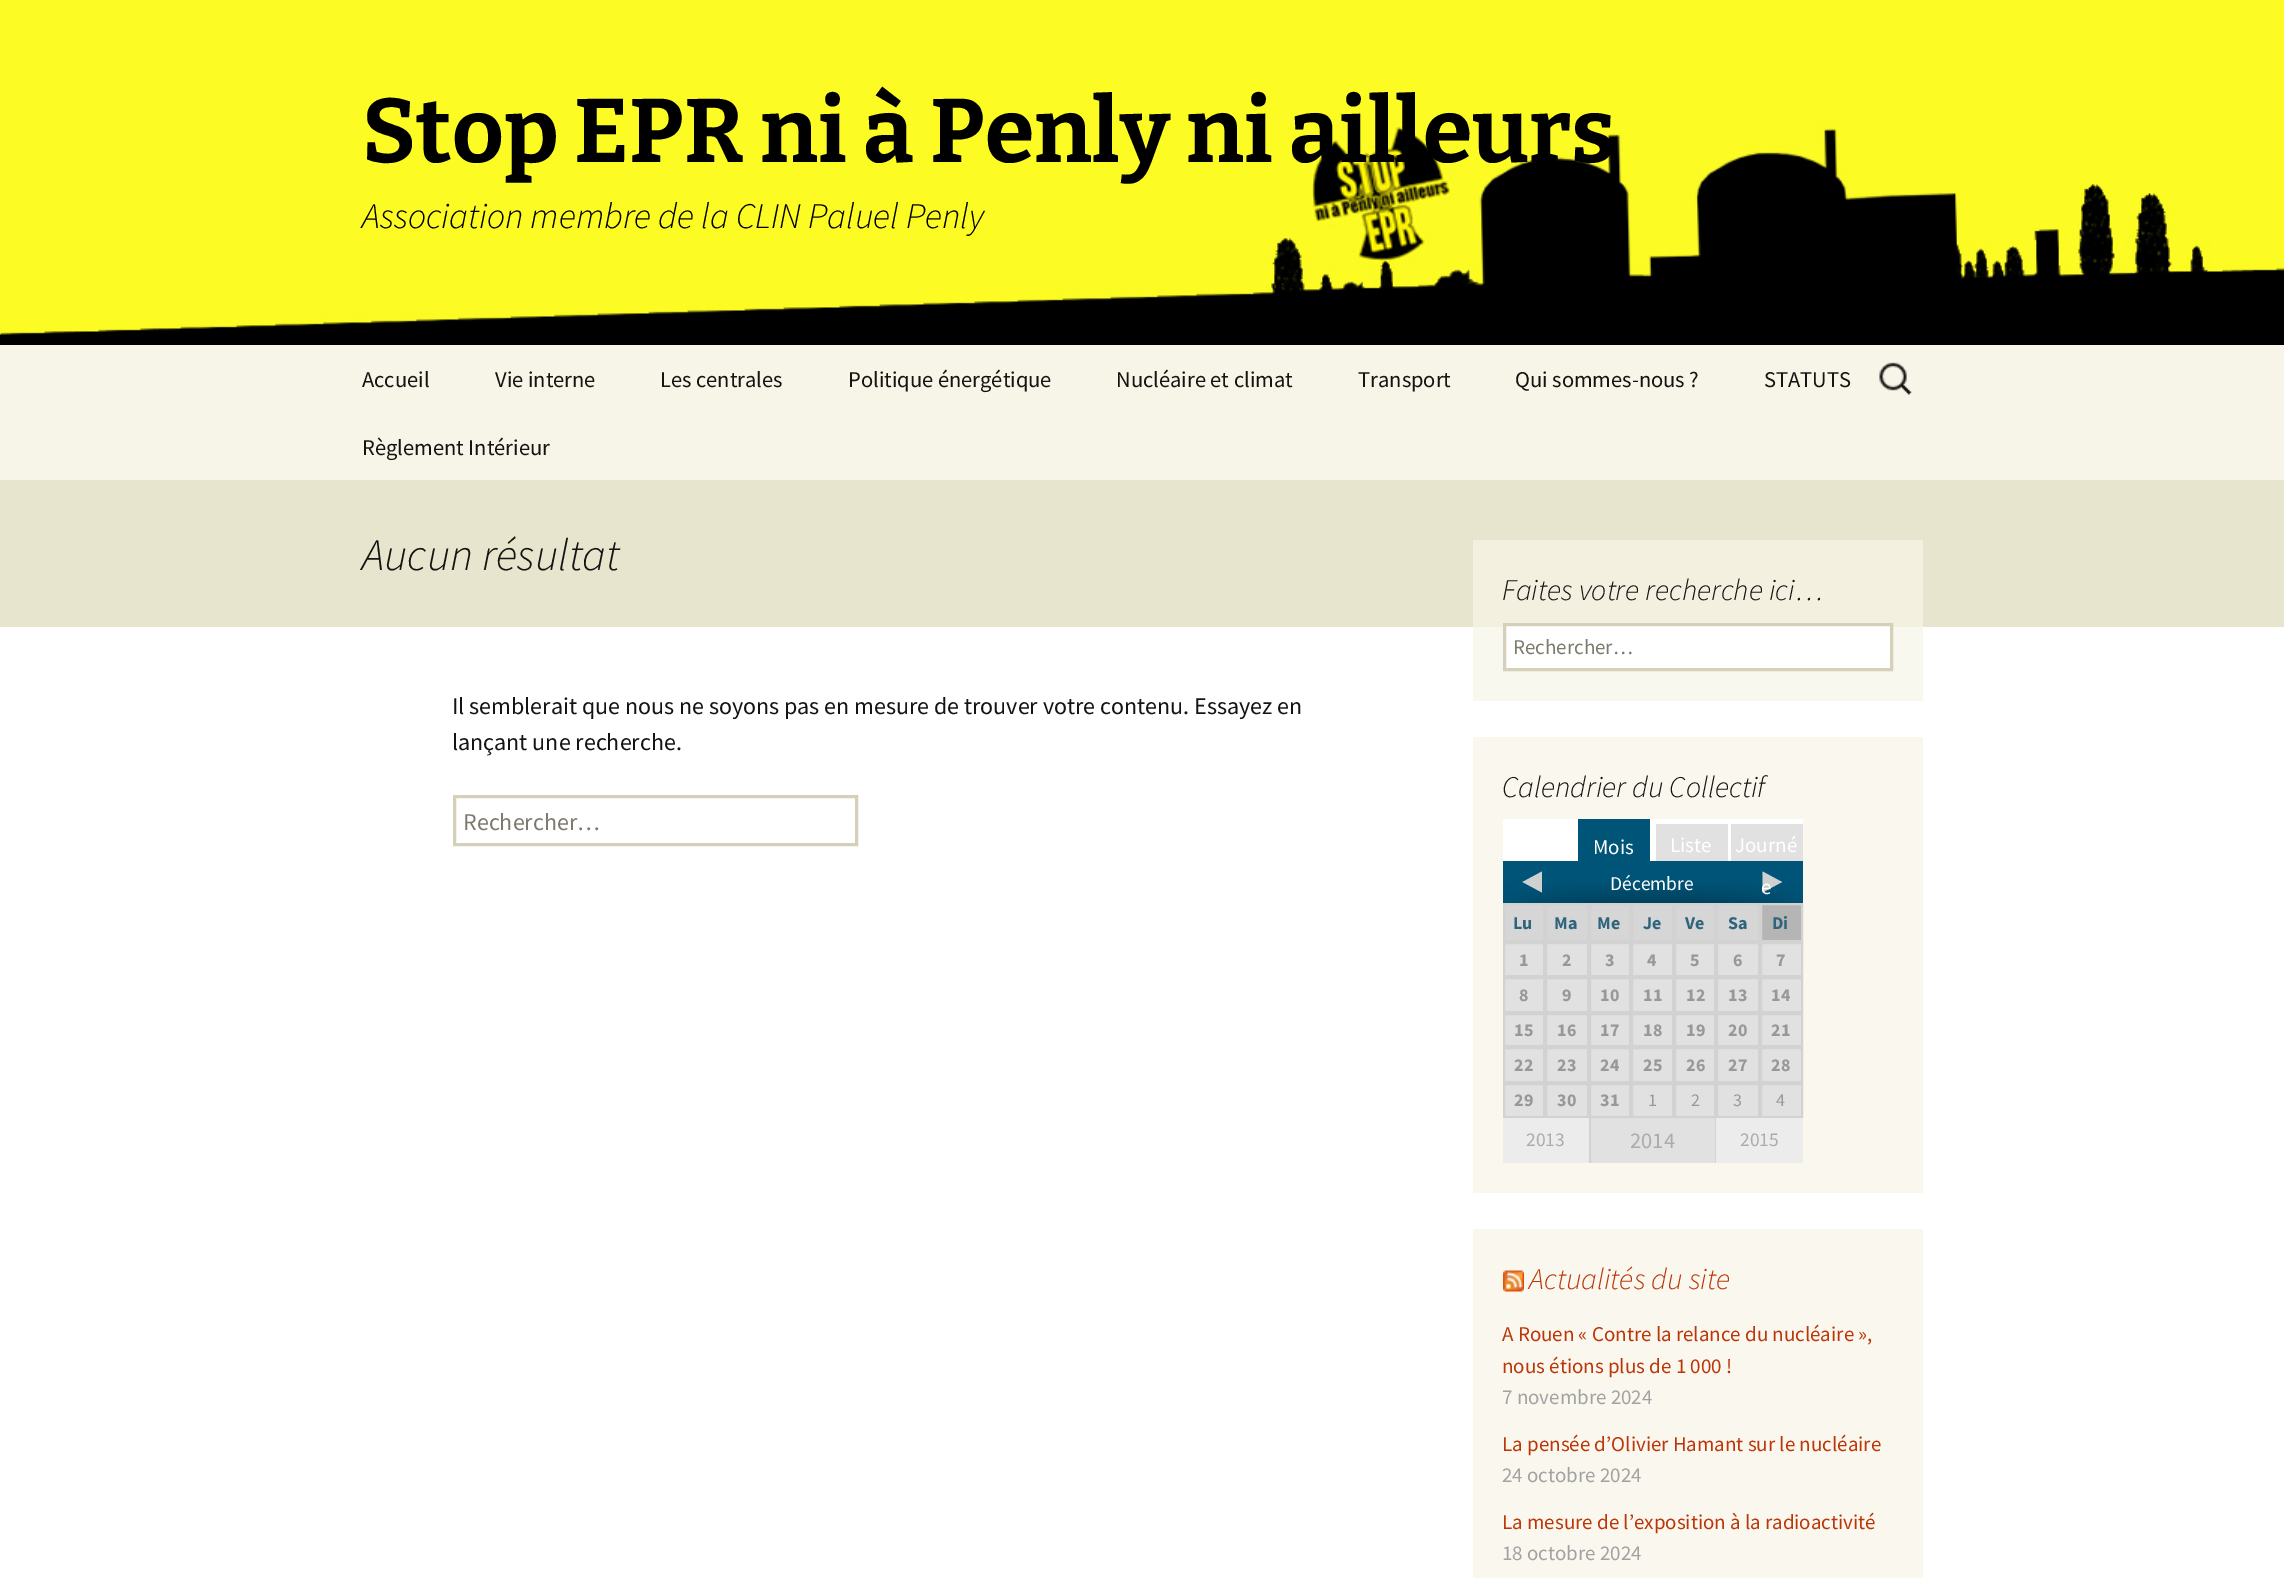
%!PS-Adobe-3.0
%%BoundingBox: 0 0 2284 1578
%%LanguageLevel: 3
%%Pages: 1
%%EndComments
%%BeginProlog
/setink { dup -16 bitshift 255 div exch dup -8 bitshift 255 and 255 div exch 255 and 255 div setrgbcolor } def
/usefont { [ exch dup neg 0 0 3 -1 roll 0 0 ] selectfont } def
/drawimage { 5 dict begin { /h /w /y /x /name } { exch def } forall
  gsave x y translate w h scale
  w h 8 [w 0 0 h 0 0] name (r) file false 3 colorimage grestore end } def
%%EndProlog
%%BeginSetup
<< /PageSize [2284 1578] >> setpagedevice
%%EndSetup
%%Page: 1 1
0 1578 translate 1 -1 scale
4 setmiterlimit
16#FFFFFF setink
0 0 2284 1578 rectfill
16#F9F8EE setink
1473 627 450 74 rectfill
(img1.raw) 0 0 2284 345 drawimage
/Bitter-Thin 90 usefont
16#000000 setink
362 162 moveto (Stop EPR ni à Penly ni ailleurs) show
/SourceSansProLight-LightItalic 36 usefont
362 228 moveto (Association membre de la CLIN Paluel Penly) show
16#F7F5E7 setink
0 345 2284 135 rectfill
/SourceSansPro-Regular 22.5 usefont
16#141412 setink
[
    [(Accueil) 362 387]
    [(Vie interne) 495 387]
    [(Les centrales) 660 387]
    [(Politique énergétique) 848 387]
    [(Nucléaire et climat) 1116 387]
    [(Transport) 1358 387]
    [(Qui sommes-nous ?) 1515 387]
    [(STATUTS) 1764 387]
    [(Règlement Intérieur) 362 455]
] { aload pop moveto show } forall
(img2.raw) 1879 362 33 33 drawimage
16#E8E5CE setink
0 480 2284 147 rectfill
16#F3F0E0 setink
1473 540 450 87 rectfill
/SourceSansProLight-LightItalic 45 usefont
16#141412 setink
362 570 moveto (Aucun résultat) show
/SourceSansPro-Regular 24 usefont
452 714 moveto (Il semblerait que nous ne soyons pas en mesure de trouver votre contenu. Essayez en) show
452 750 moveto (lançant une recherche.) show
16#D4D0BA setink
3 setlinewidth
454.5 796.5 402 48 rectstroke
16#7D7B6D setink
463 830 moveto (Rechercher…) show
/SourceSansProLight-LightItalic 30 usefont
16#141412 setink
1502 600 moveto (Faites votre recherche ici…) show
16#FFFFFF setink
1504.5 624.5 moveto 1891.5 624.5 lineto 1891.5 669.5 lineto 1504.5 669.5 lineto closepath gsave fill grestore
16#D4D0BA setink
stroke
/SourceSansPro-Regular 21 usefont
16#7D7B6D setink
1513 654 moveto (Rechercher…) show
16#FAF8EE setink
1473 737 450 456 rectfill
/SourceSansProLight-LightItalic 30 usefont
16#141412 setink
1502 797 moveto (Calendrier du Collectif) show
[
    [1505 944 296 219 16#E1E1E1]
    [1503 819 300 42 16#FFFFFF]
    [1578 819 72 42 16#005478]
] { aload pop setink rectfill } forall
/SourceSansPro-Regular 21 usefont
16#FFFFFF setink
1593 854 moveto (Mois) show
16#E1E1E1 setink
1656 824 72 37 rectfill
16#FFFFFF setink
1670 852 moveto (Liste) show
16#E1E1E1 setink
1731 824 72 37 rectfill
16#FFFFFF setink
1735 852 moveto (Journé) show
16#005478 setink
1503 861 300 42 rectfill
(img3.raw) 1503 882 300 21 drawimage
16#CED1D0 setink
1762.5 892.5 moveto 1762.5 871.5 lineto 1782 882 lineto closepath fill
16#FFFFFF setink
1761 894 moveto (e) show
16#CED1D0 setink
1542 871.5 moveto 1542 892.5 lineto 1522.5 882 lineto closepath fill
/SourceSansPro-Regular 19.5 usefont
16#FFFFFF setink
1610 890 moveto (Décembre) show
16#D6D6D6 setink
1505 905 253 35 rectfill
16#D2D2D2 setink
2 setlinewidth
1504 904 40 37 rectstroke
/SourceSansPro-Bold 18 usefont
16#2F647D setink
1513 929 moveto (Lu) show
16#D2D2D2 setink
1546 904 42 37 rectstroke
16#2F647D setink
1554 929 moveto (Ma) show
16#D2D2D2 setink
1590 904 40 37 rectstroke
16#2F647D setink
1597 929 moveto (Me) show
16#D2D2D2 setink
1632 904 41 37 rectstroke
16#2F647D setink
1643 929 moveto (Je) show
16#D2D2D2 setink
1675 904 40 37 rectstroke
16#2F647D setink
1685 929 moveto (Ve) show
16#D2D2D2 setink
1717 904 42 37 rectstroke
16#2F647D setink
1728 929 moveto (Sa) show
16#B5B5B5 setink
1761 904 moveto 1802 904 lineto 1802 941 lineto 1761 941 lineto closepath gsave fill grestore
16#D2D2D2 setink
stroke
16#2F647D setink
1772 929 moveto (Di) show
16#D2D2D2 setink
1504 943 40 33 rectstroke
16#989898 setink
1519 966 moveto (1) show
16#D2D2D2 setink
1546 943 42 33 rectstroke
16#989898 setink
1562 966 moveto (2) show
16#D2D2D2 setink
1590 943 40 33 rectstroke
16#989898 setink
1605 966 moveto (3) show
16#D2D2D2 setink
1632 943 41 33 rectstroke
16#989898 setink
1647 966 moveto (4) show
16#D2D2D2 setink
1675 943 40 33 rectstroke
16#989898 setink
1690 966 moveto (5) show
16#D2D2D2 setink
1717 943 42 33 rectstroke
16#989898 setink
1733 966 moveto (6) show
16#D2D2D2 setink
1761 943 41 33 rectstroke
16#989898 setink
1776 966 moveto (7) show
16#D2D2D2 setink
1504 978 40 34 rectstroke
16#989898 setink
1519 1001 moveto (8) show
16#D2D2D2 setink
1546 978 42 34 rectstroke
16#989898 setink
1562 1001 moveto (9) show
16#D2D2D2 setink
1590 978 40 34 rectstroke
16#989898 setink
1600 1001 moveto (10) show
16#D2D2D2 setink
1632 978 41 34 rectstroke
16#989898 setink
1643 1001 moveto (11) show
16#D2D2D2 setink
1675 978 40 34 rectstroke
16#989898 setink
1686 1001 moveto (12) show
16#D2D2D2 setink
1717 978 42 34 rectstroke
16#989898 setink
1728 1001 moveto (13) show
16#D2D2D2 setink
1761 978 41 34 rectstroke
16#989898 setink
1771 1001 moveto (14) show
16#D2D2D2 setink
1504 1014 40 32 rectstroke
16#989898 setink
1514 1036 moveto (15) show
16#D2D2D2 setink
1546 1014 42 32 rectstroke
16#989898 setink
1557 1036 moveto (16) show
16#D2D2D2 setink
1590 1014 40 32 rectstroke
16#989898 setink
1600 1036 moveto (17) show
16#D2D2D2 setink
1632 1014 41 32 rectstroke
16#989898 setink
1643 1036 moveto (18) show
16#D2D2D2 setink
1675 1014 40 32 rectstroke
16#989898 setink
1686 1036 moveto (19) show
16#D2D2D2 setink
1717 1014 42 32 rectstroke
16#989898 setink
1728 1036 moveto (20) show
16#D2D2D2 setink
1761 1014 41 32 rectstroke
16#989898 setink
1771 1036 moveto (21) show
16#D2D2D2 setink
1504 1048 40 34 rectstroke
16#989898 setink
1514 1071 moveto (22) show
16#D2D2D2 setink
1546 1048 42 34 rectstroke
16#989898 setink
1557 1071 moveto (23) show
16#D2D2D2 setink
1590 1048 40 34 rectstroke
16#989898 setink
1600 1071 moveto (24) show
16#D2D2D2 setink
1632 1048 41 34 rectstroke
16#989898 setink
1643 1071 moveto (25) show
16#D2D2D2 setink
1675 1048 40 34 rectstroke
16#989898 setink
1686 1071 moveto (26) show
16#D2D2D2 setink
1717 1048 42 34 rectstroke
16#989898 setink
1728 1071 moveto (27) show
16#D2D2D2 setink
1761 1048 41 34 rectstroke
16#989898 setink
1771 1071 moveto (28) show
16#D2D2D2 setink
1504 1084 40 33 rectstroke
16#989898 setink
1514 1106 moveto (29) show
16#D2D2D2 setink
1546 1084 42 33 rectstroke
16#989898 setink
1557 1106 moveto (30) show
16#D2D2D2 setink
1590 1084 40 33 rectstroke
16#989898 setink
1600 1106 moveto (31) show
16#D2D2D2 setink
1632 1084 41 33 rectstroke
/SourceSansPro-Regular 18 usefont
16#989898 setink
1648 1106 moveto (1) show
16#D2D2D2 setink
1675 1084 40 33 rectstroke
16#989898 setink
1691 1106 moveto (2) show
16#D2D2D2 setink
1717 1084 42 33 rectstroke
16#989898 setink
1733 1106 moveto (3) show
16#D2D2D2 setink
1761 1084 41 33 rectstroke
16#989898 setink
1776 1106 moveto (4) show
16#ECECEC setink
1503 1118 86 45 rectfill
/SourceSansPro-Regular 19.5 usefont
16#ACACAC setink
1526 1146 moveto (2013) show
16#D2D2D2 setink
1715 1118 1 45 rectfill
1589 1118 2 45 rectfill
/SourceSansPro-Regular 22.5 usefont
16#ACACAC setink
1630 1148 moveto (2014) show
16#ECECEC setink
1716 1118 87 45 rectfill
/SourceSansPro-Regular 19.5 usefont
16#ACACAC setink
1740 1146 moveto (2015) show
16#FAF8EE setink
1473 1229 450 349 rectfill
(img4.raw) 1503 1270 21 22 drawimage
/SourceSansProLight-LightItalic 30 usefont
16#BC360A setink
1529 1289 moveto (Actualités du site) show
/SourceSansPro-Regular 21 usefont
1502 1341 moveto (A Rouen « Contre la relance du nucléaire »,) show
1502 1373 moveto (nous étions plus de 1 000 !) show
16#A2A2A2 setink
1502 1404 moveto (7 novembre 2024) show
16#BC360A setink
1502 1451 moveto (La pensée d’Olivier Hamant sur le nucléaire) show
16#A2A2A2 setink
1502 1482 moveto (24 octobre 2024) show
16#BC360A setink
1502 1529 moveto (La mesure de l’exposition à la radioactivité) show
16#A2A2A2 setink
1502 1560 moveto (18 octobre 2024) show
showpage
%%EOF
